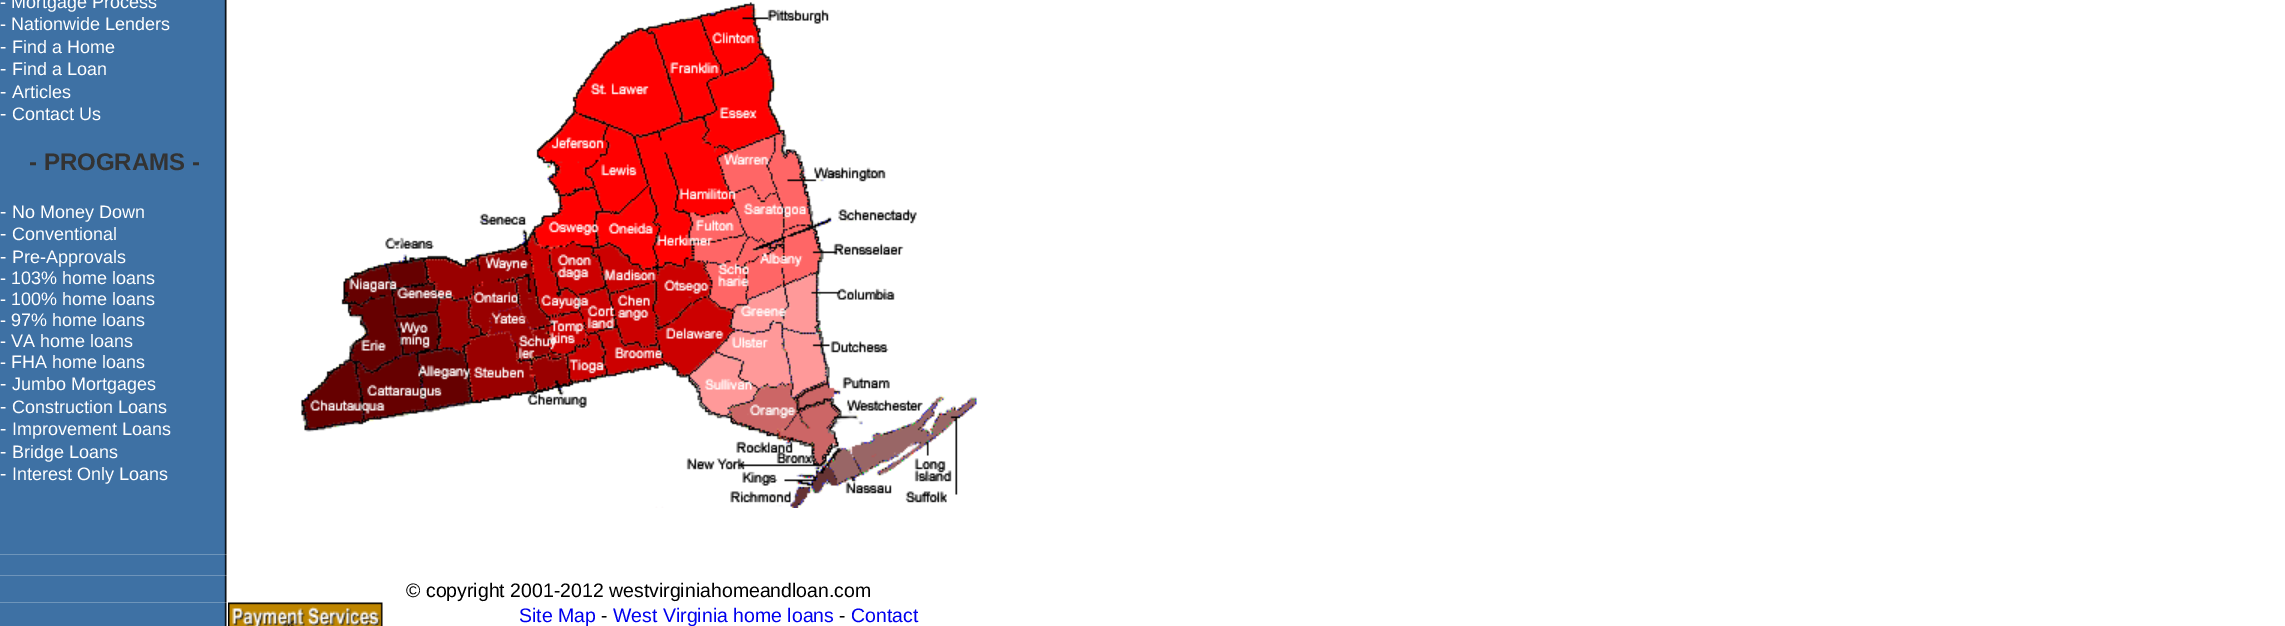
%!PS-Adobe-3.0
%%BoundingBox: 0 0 2285 626
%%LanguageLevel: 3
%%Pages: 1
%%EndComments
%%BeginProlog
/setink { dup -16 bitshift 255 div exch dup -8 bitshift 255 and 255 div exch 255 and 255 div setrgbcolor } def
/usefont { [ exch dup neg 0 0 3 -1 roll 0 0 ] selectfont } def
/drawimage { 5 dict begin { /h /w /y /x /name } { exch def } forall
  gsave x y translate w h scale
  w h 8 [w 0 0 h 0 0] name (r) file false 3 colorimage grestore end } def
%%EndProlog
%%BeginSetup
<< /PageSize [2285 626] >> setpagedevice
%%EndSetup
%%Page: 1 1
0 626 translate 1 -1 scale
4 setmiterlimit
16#FFFFFF setink
0 0 2285 626 rectfill
(img1.raw) 0 0 227 555 drawimage
/LiberationSans-Regular 18 usefont
[
    [(-) 0 8]
    [(Mortgage Process) 11 8]
    [(-) 0 30]
    [(Nationwide Lenders) 11 30]
] { aload pop moveto show } forall
/LiberationSans-Regular 19.5 usefont
0 53 moveto (-) show
/LiberationSans-Regular 18 usefont
12 53 moveto (Find a Home) show
/LiberationSans-Regular 19.5 usefont
0 75 moveto (-) show
/LiberationSans-Regular 18 usefont
12 75 moveto (Find a Loan) show
/LiberationSans-Regular 19.5 usefont
0 98 moveto (-) show
/LiberationSans-Regular 18 usefont
12 98 moveto (Articles) show
/LiberationSans-Regular 19.5 usefont
0 120 moveto (-) show
/LiberationSans-Regular 18 usefont
12 120 moveto (Contact Us) show
/LiberationSans-Bold 24 usefont
16#333333 setink
29 170 moveto (- PROGRAMS -) show
/LiberationSans-Regular 19.5 usefont
16#FFFFFF setink
0 218 moveto (-) show
/LiberationSans-Regular 18 usefont
12 218 moveto (No Money Down) show
/LiberationSans-Regular 19.5 usefont
0 240 moveto (-) show
/LiberationSans-Regular 18 usefont
12 240 moveto (Conventional) show
/LiberationSans-Regular 19.5 usefont
0 263 moveto (-) show
/LiberationSans-Regular 18 usefont
[
    [(Pre-Approvals) 12 263]
    [(- 103% home loans) 0 284]
    [(- 100% home loans) 0 305]
    [(- 97% home loans) 0 326]
    [(- VA home loans) 0 347]
    [(- FHA home loans) 0 368]
] { aload pop moveto show } forall
/LiberationSans-Regular 19.5 usefont
0 390 moveto (-) show
/LiberationSans-Regular 18 usefont
12 390 moveto (Jumbo Mortgages) show
/LiberationSans-Regular 19.5 usefont
0 413 moveto (-) show
/LiberationSans-Regular 18 usefont
12 413 moveto (Construction Loans) show
/LiberationSans-Regular 19.5 usefont
0 435 moveto (-) show
/LiberationSans-Regular 18 usefont
12 435 moveto (Improvement Loans) show
/LiberationSans-Regular 19.5 usefont
0 458 moveto (-) show
/LiberationSans-Regular 18 usefont
12 458 moveto (Bridge Loans) show
/LiberationSans-Regular 19.5 usefont
0 480 moveto (-) show
/LiberationSans-Regular 18 usefont
12 480 moveto (Interest Only Loans) show
(img2.raw) 301 2 676 506 drawimage
(img3.raw) 0 554 227 20 drawimage
16#36628F setink
224 556 1 18 rectfill
(img4.raw) 0 574 227 2 drawimage
(img5.raw) 0 575 227 28 drawimage
/LiberationSans-Regular 19.5 usefont
16#000000 setink
406 597 moveto (© copyright 2001-2012 westvirginiahomeandloan.com) show
(img6.raw) 0 602 227 24 drawimage
(img7.raw) 228 602 155 24 drawimage
16#0000EE setink
519 622 moveto (Site Map) show
16#000000 setink
601 622 moveto (-) show
16#0000EE setink
613 622 moveto (West Virginia home loans) show
16#000000 setink
839 622 moveto (-) show
16#0000EE setink
851 622 moveto (Contact) show
showpage
%%EOF
